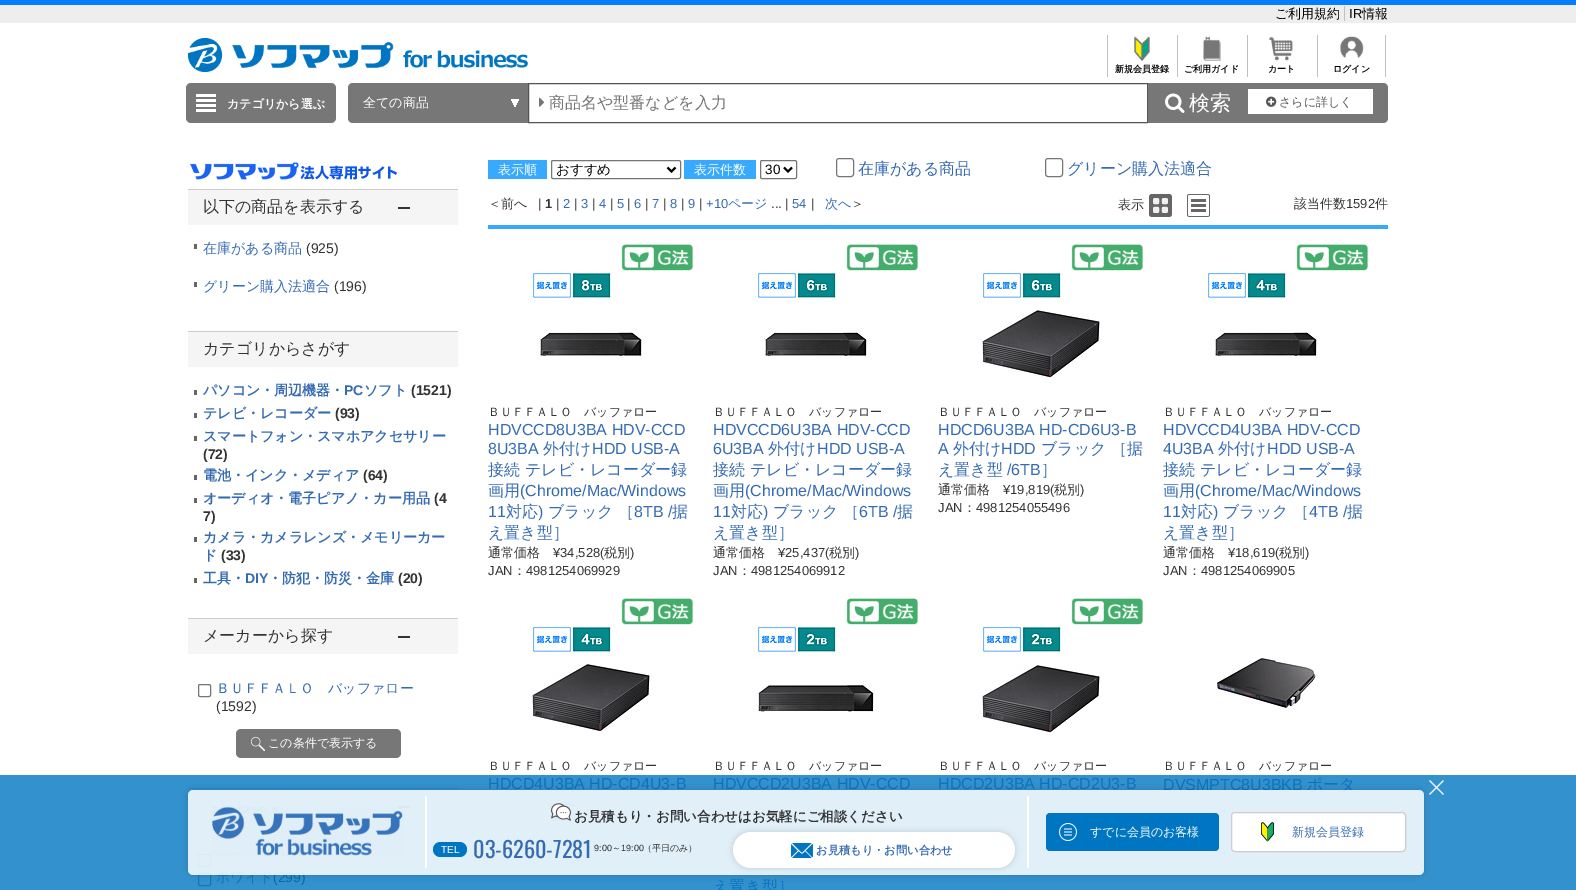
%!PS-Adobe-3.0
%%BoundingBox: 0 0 1576 890
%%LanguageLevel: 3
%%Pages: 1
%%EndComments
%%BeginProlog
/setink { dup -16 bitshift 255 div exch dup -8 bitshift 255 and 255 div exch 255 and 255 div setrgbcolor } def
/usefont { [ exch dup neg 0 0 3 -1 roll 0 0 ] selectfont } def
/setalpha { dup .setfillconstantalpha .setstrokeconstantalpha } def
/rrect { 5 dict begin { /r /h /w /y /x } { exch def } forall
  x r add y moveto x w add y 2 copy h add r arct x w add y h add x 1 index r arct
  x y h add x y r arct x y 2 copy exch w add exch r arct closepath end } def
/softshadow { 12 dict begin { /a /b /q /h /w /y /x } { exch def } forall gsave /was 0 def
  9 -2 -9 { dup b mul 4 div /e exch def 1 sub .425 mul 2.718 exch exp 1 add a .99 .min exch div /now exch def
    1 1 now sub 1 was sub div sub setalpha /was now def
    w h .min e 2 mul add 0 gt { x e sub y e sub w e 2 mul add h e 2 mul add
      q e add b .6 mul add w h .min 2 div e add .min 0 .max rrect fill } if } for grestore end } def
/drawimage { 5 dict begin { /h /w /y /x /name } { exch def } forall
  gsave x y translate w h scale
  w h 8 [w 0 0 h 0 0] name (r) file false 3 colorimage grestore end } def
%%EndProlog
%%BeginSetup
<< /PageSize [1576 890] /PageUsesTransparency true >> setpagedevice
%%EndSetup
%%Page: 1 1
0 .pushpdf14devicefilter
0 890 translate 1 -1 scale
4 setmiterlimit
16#FFFFFF setink
0 0 1576 890 rectfill
[
    [0 775 1576 115 16#3391CD]
    [0 0 1576 5 16#087CFF]
    [0 5 1576 18 16#EEEEEE]
] { aload pop setink rectfill } forall
/WenQuanYiZenHei-Medium 13 usefont
16#000000 setink
1275 18 moveto (ご利用規約) show
16#C0C0C0 setink
1344 6 1 15 rectfill
/LiberationSans-Regular 13 usefont
16#000000 setink
1349 18 moveto (IR) show
/WenQuanYiZenHei-Medium 13 usefont
1362 18 moveto (情報) show
(img1.raw) 188 38 340 34 drawimage
16#C0C0C0 setink
1107 35 1 42 rectfill
(img2.raw) 1134 36 16 25 drawimage
/WenQuanYiZenHei-Bold 9 usefont
16#000000 setink
1115 72 moveto (新規会員登録) show
16#C0C0C0 setink
1177 35 1 42 rectfill
(img3.raw) 1203 36 18 25 drawimage
16#000000 setink
1184 72 moveto (ご利用ガイド) show
16#C0C0C0 setink
1247 35 1 42 rectfill
(img4.raw) 1269 36 24 25 drawimage
16#000000 setink
1268 72 moveto (カート) show
16#C0C0C0 setink
1385 35 1 42 rectfill
1317 35 1 42 rectfill
(img5.raw) 1340 36 24 22 drawimage
16#000000 setink
1333 72 moveto (ログイン) show
16#777777 setink
186 83 150 40 5 rrect fill
(img6.raw) 196 94 20 18 drawimage
/WenQuanYiZenHei-Bold 12 usefont
16#FFFFFF setink
227 108 moveto (カテゴリから選ぶ) show
16#777777 setink
353 83 moveto 528 83 lineto 528 123 lineto 353 123 lineto 350 123 348 121 348 118 curveto 348 88 lineto 348 85 350 83 353 83 curveto closepath fill
(img7.raw) 511 99 8 8 drawimage
/WenQuanYiZenHei-Medium 13 usefont
16#FFFFFF setink
363 107 moveto (全ての商品) show
16#555555 setink
528.5 83.5 619 39 rectstroke
(img8.raw) 539 97 6 10 drawimage
/WenQuanYiZenHei-Medium 16 usefont
16#757575 setink
549 108 moveto (商品名や型番などを入力) show
16#777777 setink
1148 83 100 40 rectfill
(img9.raw) 1165 93 20 20 drawimage
/WenQuanYiZenHei-Medium 21 usefont
16#FFFFFF setink
1189 110 moveto (検索) show
16#777777 setink
1248 83 moveto 1383 83 lineto 1386 83 1388 85 1388 88 curveto 1388 118 lineto 1388 121 1386 123 1383 123 curveto 1248 123 lineto closepath fill
16#FFFFFF setink
1248 89 125 25 rectfill
(img10.raw) 1266 96 11 11 drawimage
/WenQuanYiZenHei-Medium 12 usefont
16#555555 setink
1279 106 moveto (さらに詳しく) show
(img11.raw) 190 162 207 18 drawimage
[
    [188 190 270 35 16#F5F5F5]
    [398 207 12 2 16#333333]
    [188 189 270 1 16#CCCCCC]
] { aload pop setink rectfill } forall
/WenQuanYiZenHei-Medium 16 usefont
16#333333 setink
203 212 moveto (以下の商品を表示する) show
/WenQuanYiZenHei-Medium 14 usefont
16#356BB3 setink
203 253 moveto (在庫がある商品) show
16#666666 setink
194 244 3 5 rectfill
/LiberationSans-Regular 14 usefont
16#333333 setink
306 253 moveto (\(925\)) show
/WenQuanYiZenHei-Medium 14 usefont
16#356BB3 setink
203 291 moveto (グリーン購入法適合) show
16#666666 setink
194 282 3 5 rectfill
/LiberationSans-Regular 14 usefont
16#333333 setink
334 291 moveto (\(196\)) show
16#F5F5F5 setink
188 332 270 35 rectfill
16#CCCCCC setink
188 331 270 1 rectfill
/WenQuanYiZenHei-Medium 16 usefont
16#333333 setink
203 354 moveto (カテゴリからさがす) show
16#666666 setink
194 390 3 5 rectfill
/WenQuanYiZenHei-Bold 14 usefont
16#356BB3 setink
203 395 moveto (パソコン・周辺機器・) show
/LiberationSans-Bold 14 usefont
344 395 moveto (PC) show
/WenQuanYiZenHei-Bold 14 usefont
364 395 moveto (ソフト) show
/LiberationSans-Bold 14 usefont
16#333333 setink
411 395 moveto (\(1521\)) show
16#666666 setink
194 413 3 5 rectfill
/WenQuanYiZenHei-Bold 14 usefont
16#356BB3 setink
203 418 moveto (テレビ・レコーダー) show
/LiberationSans-Bold 14 usefont
16#333333 setink
335 418 moveto (\(93\)) show
16#666666 setink
194 436 3 5 rectfill
/WenQuanYiZenHei-Bold 14 usefont
16#356BB3 setink
203 441 moveto (スマートフォン・スマホアクセサリー) show
/LiberationSans-Bold 14 usefont
16#333333 setink
203 459 moveto (\(72\)) show
16#666666 setink
194 475 3 5 rectfill
/WenQuanYiZenHei-Bold 14 usefont
16#356BB3 setink
203 480 moveto (電池・インク・メディア) show
/LiberationSans-Bold 14 usefont
16#333333 setink
363 480 moveto (\(64\)) show
16#666666 setink
194 498 3 5 rectfill
/WenQuanYiZenHei-Bold 14 usefont
16#356BB3 setink
203 503 moveto (オーディオ・電子ピアノ・カー用品) show
/LiberationSans-Bold 14 usefont
16#333333 setink
434 503 moveto (\(4) show
203 521 moveto (7\)) show
16#666666 setink
194 537 3 5 rectfill
/WenQuanYiZenHei-Bold 14 usefont
16#356BB3 setink
203 542 moveto (カメラ・カメラレンズ・メモリーカー) show
203 560 moveto (ド) show
/LiberationSans-Bold 14 usefont
16#333333 setink
221 560 moveto (\(33\)) show
16#666666 setink
194 578 3 5 rectfill
/WenQuanYiZenHei-Bold 14 usefont
16#356BB3 setink
203 583 moveto (工具・) show
/LiberationSans-Bold 14 usefont
245 583 moveto (DIY) show
/WenQuanYiZenHei-Bold 14 usefont
268 583 moveto (・防犯・防災・金庫) show
/LiberationSans-Bold 14 usefont
16#333333 setink
398 583 moveto (\(20\)) show
[
    [188 619 270 35 16#F5F5F5]
    [398 636 12 2 16#333333]
    [188 618 270 1 16#CCCCCC]
] { aload pop setink rectfill } forall
/WenQuanYiZenHei-Medium 16 usefont
16#333333 setink
203 641 moveto (メーカーから探す) show
16#767676 setink
198.5 684.5 12 12 1.5 rrect stroke
/WenQuanYiZenHei-Medium 14 usefont
16#356BB3 setink
216 693 moveto (ＢＵＦＦＡＬＯ　バッファロー) show
/LiberationSans-Regular 14 usefont
16#333333 setink
216 711 moveto (\(1592\)) show
16#777777 setink
236 729 165 29 5 rrect fill
(img12.raw) 251 737 14 14 drawimage
/WenQuanYiZenHei-Medium 12 usefont
16#FFFFFF setink
268 747 moveto (この条件で表示する) show
16#0A68A5 setink
398 806 12 2 rectfill
16#2986C3 setink
188 788 270 1 rectfill
16#1875B2 setink
198.5 854.5 12 12 1.5 rrect stroke
198.5 873.5 12 12 1.5 rrect stroke
/WenQuanYiZenHei-Medium 14 usefont
16#0B73BE setink
216 882 moveto (ホワイト) show
/LiberationSans-Regular 14 usefont
16#0A68A5 setink
273 882 moveto (\(299\)) show
16#37AAFF setink
488 160 59 19 rectfill
/WenQuanYiZenHei-Medium 13 usefont
16#FFFFFF setink
498 174 moveto (表示順) show
16#767676 setink
551.5 160.5 129 18 1.5 rrect stroke
16#000000 setink
2 setlinewidth
667.5 167.5 moveto 671.5 171.5 lineto 675.5 167.5 lineto stroke
/WenQuanYiZenHei-Medium 13.5 usefont
556 174 moveto (おすすめ) show
16#37AAFF setink
684 160 72 19 rectfill
/WenQuanYiZenHei-Medium 13 usefont
16#FFFFFF setink
694 174 moveto (表示件数) show
16#767676 setink
1 setlinewidth
760.5 160.5 36 18 1.5 rrect stroke
16#000000 setink
2 setlinewidth
784 167.5 moveto 788 171.5 lineto 792 167.5 lineto stroke
/LiberationSans-Regular 13.5 usefont
765 174 moveto (30) show
16#767676 setink
1 setlinewidth
836.5 158.5 17 18 2.5 rrect stroke
/WenQuanYiZenHei-Medium 16 usefont
16#356BB3 setink
858 174 moveto (在庫がある商品) show
16#767676 setink
1045.5 158.5 17 18 2.5 rrect stroke
16#356BB3 setink
1067 174 moveto (グリーン購入法適合) show
/WenQuanYiZenHei-Medium 13 usefont
16#333333 setink
488 208 moveto (＜前へ) show
/LiberationSans-Regular 13 usefont
538 208 moveto (|) show
/LiberationSans-Bold 13 usefont
545 208 moveto (1) show
/LiberationSans-Regular 13 usefont
556 208 moveto (|) show
16#356BB3 setink
563 208 moveto (2) show
16#333333 setink
574 208 moveto (|) show
16#356BB3 setink
581 208 moveto (3) show
16#333333 setink
592 208 moveto (|) show
16#356BB3 setink
599 208 moveto (4) show
16#333333 setink
610 208 moveto (|) show
16#356BB3 setink
617 208 moveto (5) show
16#333333 setink
627 208 moveto (|) show
16#356BB3 setink
634 208 moveto (6) show
16#333333 setink
645 208 moveto (|) show
16#356BB3 setink
652 208 moveto (7) show
16#333333 setink
663 208 moveto (|) show
16#356BB3 setink
670 208 moveto (8) show
16#333333 setink
681 208 moveto (|) show
16#356BB3 setink
688 208 moveto (9) show
16#333333 setink
699 208 moveto (|) show
16#356BB3 setink
706 208 moveto (+10) show
/WenQuanYiZenHei-Medium 13 usefont
728 208 moveto (ページ) show
/LiberationSans-Regular 13 usefont
16#333333 setink
771 208 moveto (... |) show
16#356BB3 setink
792 208 moveto (54) show
16#333333 setink
811 208 moveto (|) show
/WenQuanYiZenHei-Medium 13 usefont
16#356BB3 setink
825 208 moveto (次へ) show
16#333333 setink
851 208 moveto (＞) show
1118 209 moveto (表示) show
(img13.raw) 1149 194 23 23 drawimage
(img14.raw) 1187 194 23 23 drawimage
1294 208 moveto (該当件数) show
/LiberationSans-Regular 13 usefont
1346 208 moveto (1592) show
/WenQuanYiZenHei-Medium 13 usefont
1375 208 moveto (件) show
16#37AAFF setink
488 225 900 4 rectfill
(img15.raw) 621 244 72 27 drawimage
(img16.raw) 527 271 119 88 drawimage
/WenQuanYiZenHei-Medium 12 usefont
16#333333 setink
488 416 moveto (ＢＵＦＦＡＬＯ　バッファロー) show
/LiberationSans-Regular 16 usefont
16#356BB3 setink
488 435 moveto (HDVCCD8U3BA HDV-CCD) show
488 454 moveto (8U3BA) show
/WenQuanYiZenHei-Medium 16 usefont
543 454 moveto (外付け) show
/LiberationSans-Regular 16 usefont
592 454 moveto (HDD USB-A) show
/WenQuanYiZenHei-Medium 16 usefont
488 475 moveto (接続 テレビ・レコーダー録) show
488 496 moveto (画用) show
/LiberationSans-Regular 16 usefont
520 496 moveto (\(Chrome/Mac/Windows) show
488 517 moveto (11) show
/WenQuanYiZenHei-Medium 16 usefont
506 517 moveto (対応) show
/LiberationSans-Regular 16 usefont
538 517 moveto (\)) show
/WenQuanYiZenHei-Medium 16 usefont
548 517 moveto (ブラック) show
618 517 moveto (［) show
/LiberationSans-Regular 16 usefont
634 517 moveto (8TB /) show
/WenQuanYiZenHei-Medium 16 usefont
672 517 moveto (据) show
488 538 moveto (え置き型］) show
/WenQuanYiZenHei-Medium 13 usefont
16#333333 setink
488 557 moveto (通常価格) show
/LiberationSans-Regular 13 usefont
553 557 moveto (¥34,528\() show
/WenQuanYiZenHei-Medium 13 usefont
604 557 moveto (税別) show
/LiberationSans-Regular 13 usefont
630 557 moveto (\)) show
488 575 moveto (JAN) show
/WenQuanYiZenHei-Medium 13 usefont
513 575 moveto (：) show
/LiberationSans-Regular 13 usefont
526 575 moveto (4981254069929) show
(img15.raw) 846 244 72 27 drawimage
(img17.raw) 752 271 119 88 drawimage
/WenQuanYiZenHei-Medium 12 usefont
713 416 moveto (ＢＵＦＦＡＬＯ　バッファロー) show
/LiberationSans-Regular 16 usefont
16#356BB3 setink
713 435 moveto (HDVCCD6U3BA HDV-CCD) show
713 454 moveto (6U3BA) show
/WenQuanYiZenHei-Medium 16 usefont
768 454 moveto (外付け) show
/LiberationSans-Regular 16 usefont
817 454 moveto (HDD USB-A) show
/WenQuanYiZenHei-Medium 16 usefont
713 475 moveto (接続 テレビ・レコーダー録) show
713 496 moveto (画用) show
/LiberationSans-Regular 16 usefont
745 496 moveto (\(Chrome/Mac/Windows) show
713 517 moveto (11) show
/WenQuanYiZenHei-Medium 16 usefont
731 517 moveto (対応) show
/LiberationSans-Regular 16 usefont
763 517 moveto (\)) show
/WenQuanYiZenHei-Medium 16 usefont
773 517 moveto (ブラック) show
843 517 moveto (［) show
/LiberationSans-Regular 16 usefont
859 517 moveto (6TB /) show
/WenQuanYiZenHei-Medium 16 usefont
897 517 moveto (据) show
713 538 moveto (え置き型］) show
/WenQuanYiZenHei-Medium 13 usefont
16#333333 setink
713 557 moveto (通常価格) show
/LiberationSans-Regular 13 usefont
778 557 moveto (¥25,437\() show
/WenQuanYiZenHei-Medium 13 usefont
829 557 moveto (税別) show
/LiberationSans-Regular 13 usefont
855 557 moveto (\)) show
713 575 moveto (JAN) show
/WenQuanYiZenHei-Medium 13 usefont
738 575 moveto (：) show
/LiberationSans-Regular 13 usefont
751 575 moveto (4981254069912) show
(img18.raw) 1071 244 72 27 drawimage
(img19.raw) 977 271 124 112 drawimage
/WenQuanYiZenHei-Medium 12 usefont
938 416 moveto (ＢＵＦＦＡＬＯ　バッファロー) show
/LiberationSans-Regular 16 usefont
16#356BB3 setink
938 435 moveto (HDCD6U3BA HD-CD6U3-B) show
938 454 moveto (A) show
/WenQuanYiZenHei-Medium 16 usefont
953 454 moveto (外付け) show
/LiberationSans-Regular 16 usefont
1001 454 moveto (HDD) show
/WenQuanYiZenHei-Medium 16 usefont
1041 454 moveto (ブラック ［据) show
938 475 moveto (え置き型) show
/LiberationSans-Regular 16 usefont
1007 475 moveto (/6TB) show
/WenQuanYiZenHei-Medium 16 usefont
1041 475 moveto (］) show
/WenQuanYiZenHei-Medium 13 usefont
16#333333 setink
938 494 moveto (通常価格) show
/LiberationSans-Regular 13 usefont
1003 494 moveto (¥19,819\() show
/WenQuanYiZenHei-Medium 13 usefont
1054 494 moveto (税別) show
/LiberationSans-Regular 13 usefont
1080 494 moveto (\)) show
938 512 moveto (JAN) show
/WenQuanYiZenHei-Medium 13 usefont
963 512 moveto (：) show
/LiberationSans-Regular 13 usefont
976 512 moveto (4981254055496) show
(img15.raw) 1296 244 72 27 drawimage
(img20.raw) 1202 271 119 88 drawimage
/WenQuanYiZenHei-Medium 12 usefont
1163 416 moveto (ＢＵＦＦＡＬＯ　バッファロー) show
/LiberationSans-Regular 16 usefont
16#356BB3 setink
1163 435 moveto (HDVCCD4U3BA HDV-CCD) show
1163 454 moveto (4U3BA) show
/WenQuanYiZenHei-Medium 16 usefont
1218 454 moveto (外付け) show
/LiberationSans-Regular 16 usefont
1267 454 moveto (HDD USB-A) show
/WenQuanYiZenHei-Medium 16 usefont
1163 475 moveto (接続 テレビ・レコーダー録) show
1163 496 moveto (画用) show
/LiberationSans-Regular 16 usefont
1195 496 moveto (\(Chrome/Mac/Windows) show
1163 517 moveto (11) show
/WenQuanYiZenHei-Medium 16 usefont
1181 517 moveto (対応) show
/LiberationSans-Regular 16 usefont
1213 517 moveto (\)) show
/WenQuanYiZenHei-Medium 16 usefont
1223 517 moveto (ブラック) show
1293 517 moveto (［) show
/LiberationSans-Regular 16 usefont
1309 517 moveto (4TB /) show
/WenQuanYiZenHei-Medium 16 usefont
1347 517 moveto (据) show
1163 538 moveto (え置き型］) show
/WenQuanYiZenHei-Medium 13 usefont
16#333333 setink
1163 557 moveto (通常価格) show
/LiberationSans-Regular 13 usefont
1228 557 moveto (¥18,619\() show
/WenQuanYiZenHei-Medium 13 usefont
1279 557 moveto (税別) show
/LiberationSans-Regular 13 usefont
1305 557 moveto (\)) show
1163 575 moveto (JAN) show
/WenQuanYiZenHei-Medium 13 usefont
1188 575 moveto (：) show
/LiberationSans-Regular 13 usefont
1201 575 moveto (4981254069905) show
(img15.raw) 621 598 72 27 drawimage
(img21.raw) 527 625 128 112 drawimage
/WenQuanYiZenHei-Medium 12 usefont
488 770 moveto (ＢＵＦＦＡＬＯ　バッファロー) show
/LiberationSans-Regular 16 usefont
16#0B73BE setink
488 789 moveto (HDCD4U3BA HD-CD4U3-B) show
(img15.raw) 846 598 72 27 drawimage
(img22.raw) 752 625 127 87 drawimage
/WenQuanYiZenHei-Medium 12 usefont
16#333333 setink
713 770 moveto (ＢＵＦＦＡＬＯ　バッファロー) show
/LiberationSans-Regular 16 usefont
16#0B73BE setink
713 789 moveto (HDVCCD2U3BA HDV-CCD) show
/WenQuanYiZenHei-Medium 16 usefont
713 892 moveto (え置き型］) show
(img18.raw) 1071 598 72 27 drawimage
(img23.raw) 977 625 123 112 drawimage
/WenQuanYiZenHei-Medium 12 usefont
16#333333 setink
938 770 moveto (ＢＵＦＦＡＬＯ　バッファロー) show
/LiberationSans-Regular 16 usefont
16#0B73BE setink
938 789 moveto (HDCD2U3BA HD-CD2U3-B) show
(img24.raw) 1215 658 103 55 drawimage
/WenQuanYiZenHei-Medium 12 usefont
16#333333 setink
1163 770 moveto (ＢＵＦＦＡＬＯ　バッファロー) show
/LiberationSans-Regular 16 usefont
16#0B73BE setink
1163 790 moveto (DVSMPTC8U3BKB) show
/WenQuanYiZenHei-Medium 16 usefont
1307 790 moveto (ポータ) show
gsave
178 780 moveto 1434 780 lineto 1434 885 lineto 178 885 lineto closepath 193 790 moveto 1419 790 lineto 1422 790 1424 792 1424 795 curveto 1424 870 lineto 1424 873 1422 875 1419 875 curveto 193 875 lineto 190 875 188 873 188 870 curveto 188 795 lineto 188 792 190 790 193 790 curveto closepath eoclip newpath
16#000000 setink
188 790 1236 85 5 3 0.15 softshadow
grestore
0.85 setalpha
16#FFFFFF setink
188 790 1236 85 5 rrect fill
1 setalpha
(img25.raw) 1429 780 15 15 drawimage
(img26.raw) 212 807 191 49 drawimage
1027 796 2 72 rectfill
425 796 2 72 rectfill
(img27.raw) 551 803 20 18 drawimage
/WenQuanYiZenHei-Bold 13.5 usefont
16#333333 setink
574 821 moveto (お見積もり・お問い合わせはお気軽にご相談ください) show
16#0075C1 setink
433 842 34 15 7.5 rrect fill
/LiberationSans-Regular 10 usefont
16#FFFFFF setink
441 853 moveto (TEL) show
/Oswald-Regular 22.25 usefont
16#356BB3 setink
473 858 moveto (03-6260-7281) show
/LiberationSans-Regular 9 usefont
16#333333 setink
594 851 moveto (9:00) show
/WenQuanYiZenHei-Medium 9 usefont
612 851 moveto (～) show
/LiberationSans-Regular 9 usefont
621 851 moveto (19:00) show
/WenQuanYiZenHei-Medium 9 usefont
643 851 moveto (（平日のみ）) show
16#000000 setink
733 832 282 36 18 3 0.15 softshadow
16#FFFFFF setink
733 832 282 36 18 rrect fill
(img28.raw) 791 843 22 15 drawimage
/WenQuanYiZenHei-Bold 11.25 usefont
16#356BB3 setink
816 854 moveto (お見積もり・お問い合わせ) show
16#0075C1 setink
1046 813 173 38 4 rrect fill
(img29.raw) 1059 823 18 18 drawimage
/WenQuanYiZenHei-Medium 12 usefont
16#FFFFFF setink
1090 836 moveto (すでに会員のお客様) show
1231.5 812.5 174 39 3.5 rrect gsave fill grestore
16#CCCCCC setink
stroke
(img30.raw) 1261 822 13 20 drawimage
16#356BB3 setink
1292 836 moveto (新規会員登録) show
.poppdf14devicefilter showpage
%%EOF
